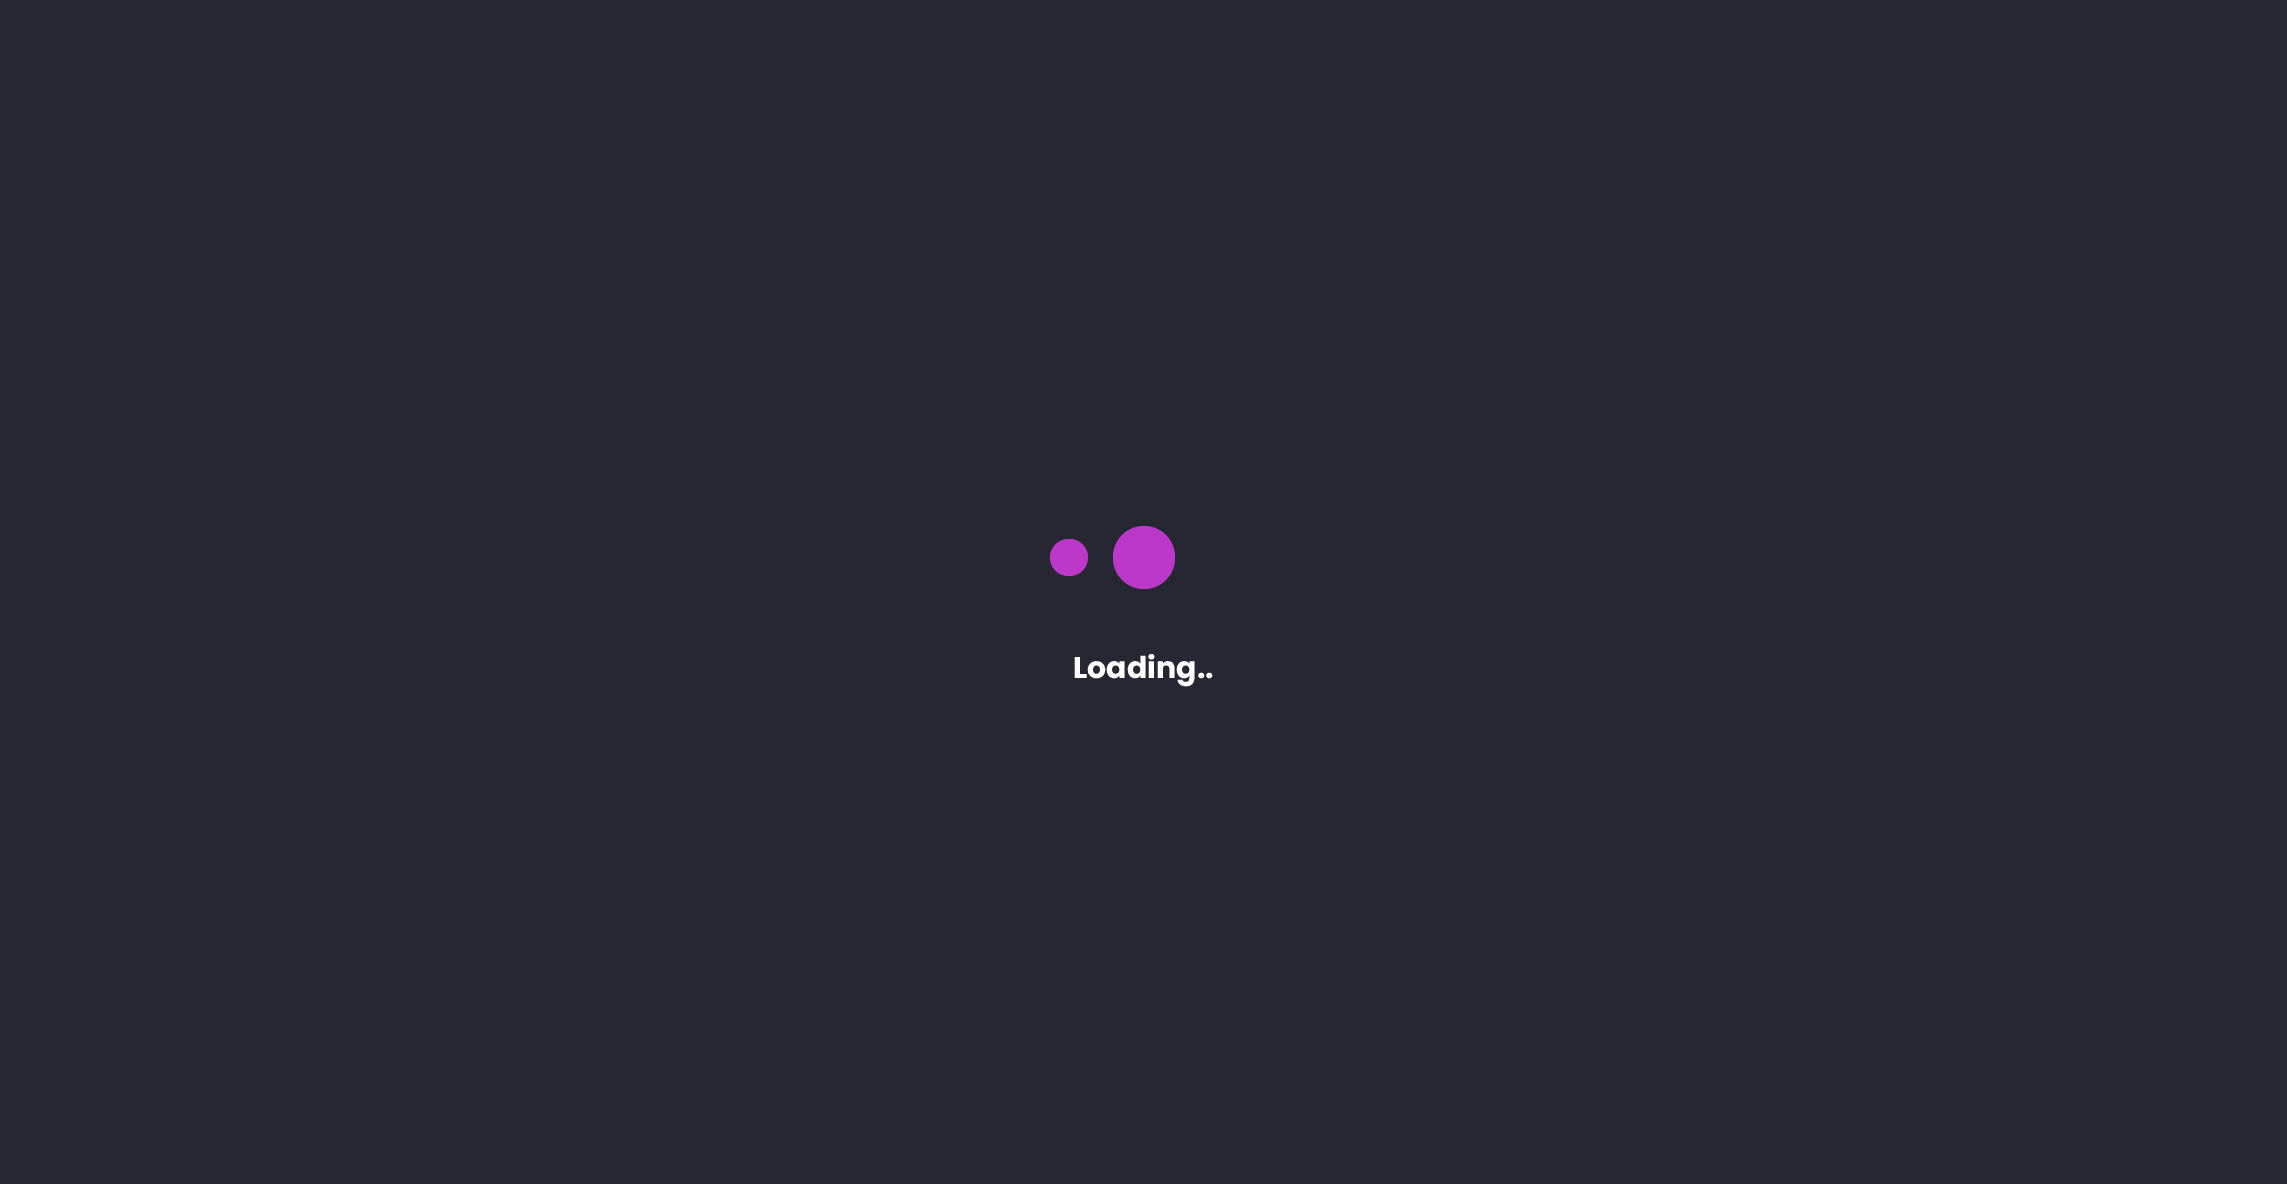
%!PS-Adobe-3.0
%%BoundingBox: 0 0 2287 1184
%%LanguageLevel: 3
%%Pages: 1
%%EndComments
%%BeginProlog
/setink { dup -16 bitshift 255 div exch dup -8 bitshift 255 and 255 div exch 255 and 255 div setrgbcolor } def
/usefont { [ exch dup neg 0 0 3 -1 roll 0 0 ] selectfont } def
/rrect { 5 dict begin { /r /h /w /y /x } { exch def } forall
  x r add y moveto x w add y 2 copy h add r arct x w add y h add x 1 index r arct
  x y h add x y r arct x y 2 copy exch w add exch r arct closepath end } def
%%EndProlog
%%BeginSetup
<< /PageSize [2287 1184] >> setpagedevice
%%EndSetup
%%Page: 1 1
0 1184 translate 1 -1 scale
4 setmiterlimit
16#272733 setink
0 0 2287 1184 rectfill
16#BC38C9 setink
1050 539 38 37 18.5 rrect fill
1113 526 62 63 31 rrect fill
/Poppins-Bold 30 usefont
16#FFFFFF setink
1073 678 moveto (Loading..) show
showpage
%%EOF
